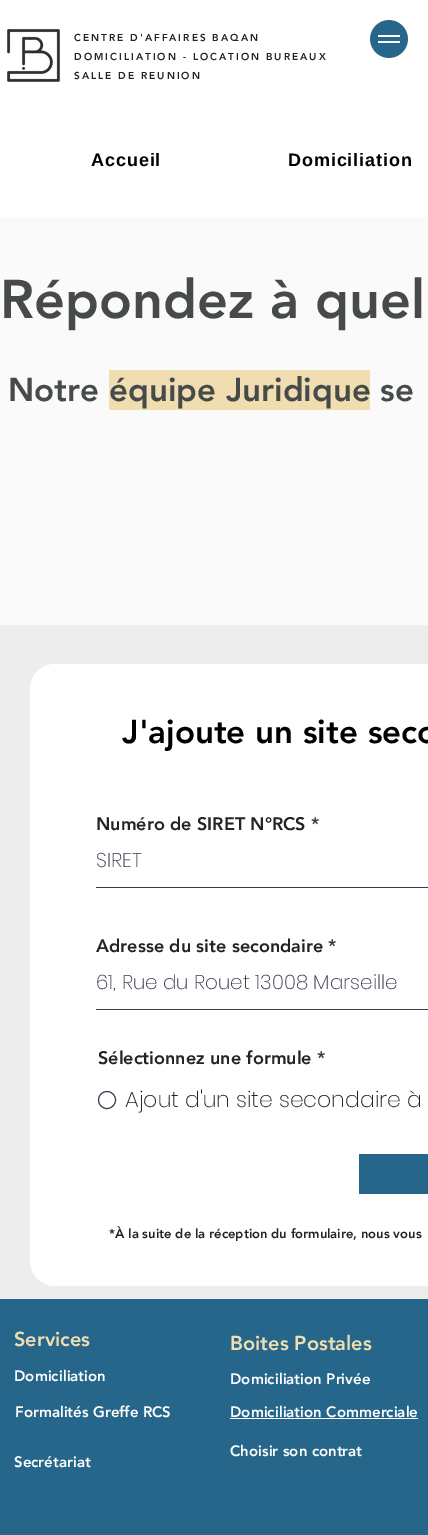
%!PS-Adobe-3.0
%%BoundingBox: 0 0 428 1535
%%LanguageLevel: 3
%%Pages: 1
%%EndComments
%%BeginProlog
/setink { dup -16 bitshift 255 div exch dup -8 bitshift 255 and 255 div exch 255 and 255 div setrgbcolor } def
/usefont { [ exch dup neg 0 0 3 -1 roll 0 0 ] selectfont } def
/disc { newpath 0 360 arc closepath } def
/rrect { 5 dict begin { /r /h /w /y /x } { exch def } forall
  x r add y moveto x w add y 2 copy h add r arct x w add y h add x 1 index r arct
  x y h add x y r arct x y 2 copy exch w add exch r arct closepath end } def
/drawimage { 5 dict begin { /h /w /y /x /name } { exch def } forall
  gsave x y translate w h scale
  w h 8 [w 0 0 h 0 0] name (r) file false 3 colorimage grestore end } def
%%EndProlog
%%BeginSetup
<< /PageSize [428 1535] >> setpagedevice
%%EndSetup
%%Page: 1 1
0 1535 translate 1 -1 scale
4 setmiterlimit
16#FFFFFF setink
0 0 428 1535 rectfill
(img1.raw) 370 20 38 38 drawimage
(img2.raw) 7 29 53 53 drawimage
/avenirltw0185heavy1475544-Black 10 usefont
16#242424 setink
74 41 moveto 2 0 (CENTRE D'AFFAIRES BAQAN) ashow
74 60 moveto 2 0 (DOMICILIATION - LOCATION BUREAUX) ashow
74 79 moveto 2 0 (SALLE DE REUNION) ashow
/LiberationSans-Bold 18 usefont
16#000000 setink
91 166 moveto 0.9 0 (Accueil) ashow
288 166 moveto 0.9 0 (Domiciliation) ashow
16#FAFAFA setink
0 217 428 408 rectfill
/avenirltw0185heavy1475544-Black 54 usefont
16#474A4B setink
0 318 moveto (Répondez à quel) show
/avenirltw0185heavy1475544-Black 33 usefont
8 401 moveto (Notre) show
16#F0DEB1 setink
109 370 261 40 rectfill
16#474A4B setink
109 401 moveto (équipe Juridique se) show
16#EDEDED setink
0 625 428 674 rectfill
16#FFFFFF setink
30 664 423 622 25 rrect fill
16#000000 setink
122 743 moveto (J'ajoute un site seco) show
/avenirltw0185heavy1475544-Black 18 usefont
16#242424 setink
96 830 moveto (Numéro de SIRET N°RCS) show
16#373B4D setink
311 830 moveto (*) show
96 887 332 1 rectfill
/Poppins-ExtraLight 20 usefont
96 867 moveto (SIRET) show
/avenirltw0185heavy1475544-Black 18 usefont
16#242424 setink
96 952 moveto (Adresse du site secondaire) show
16#373B4D setink
328 952 moveto (*) show
96 1009 332 1 rectfill
/Poppins-ExtraLight 20 usefont
96 989 moveto (61, Rue du Rouet 13008 Marseille) show
/avenirltw0185heavy1475544-Black 18 usefont
16#242424 setink
98 1064 moveto (Sélectionnez une formule) show
16#373B4D setink
317 1064 moveto (*) show
107 1100 8.5 disc stroke
/Poppins-ExtraLight 22 usefont
16#242424 setink
125 1107 moveto (Ajout d'un site secondaire à) show
16#26668B setink
359 1154 69 40 rectfill
/avenirltw0185heavy1475544-Black 13 usefont
16#242424 setink
109 1238 moveto (*À la suite de la réception du formulaire, nous vous) show
16#26668B setink
0 1299 428 236 rectfill
/avenirltw0185heavy1475544-Black 20 usefont
16#F0DEB1 setink
14 1346 moveto (Services) show
230 1350 moveto (Boites Postales) show
/avenirltw0185heavy1475544-Black 15 usefont
16#FFFFFF setink
230 1384 moveto (Domiciliation Privée) show
230 1417 moveto (Domiciliation Commerciale) show
230 1418 188 1 rectfill
[
    [(Choisir son contrat) 230 1456]
    [(Domiciliation) 14 1381]
    [(Formalités Greffe RCS) 15 1417]
    [(Secrétariat) 14 1467]
] { aload pop moveto show } forall
showpage
%%EOF
